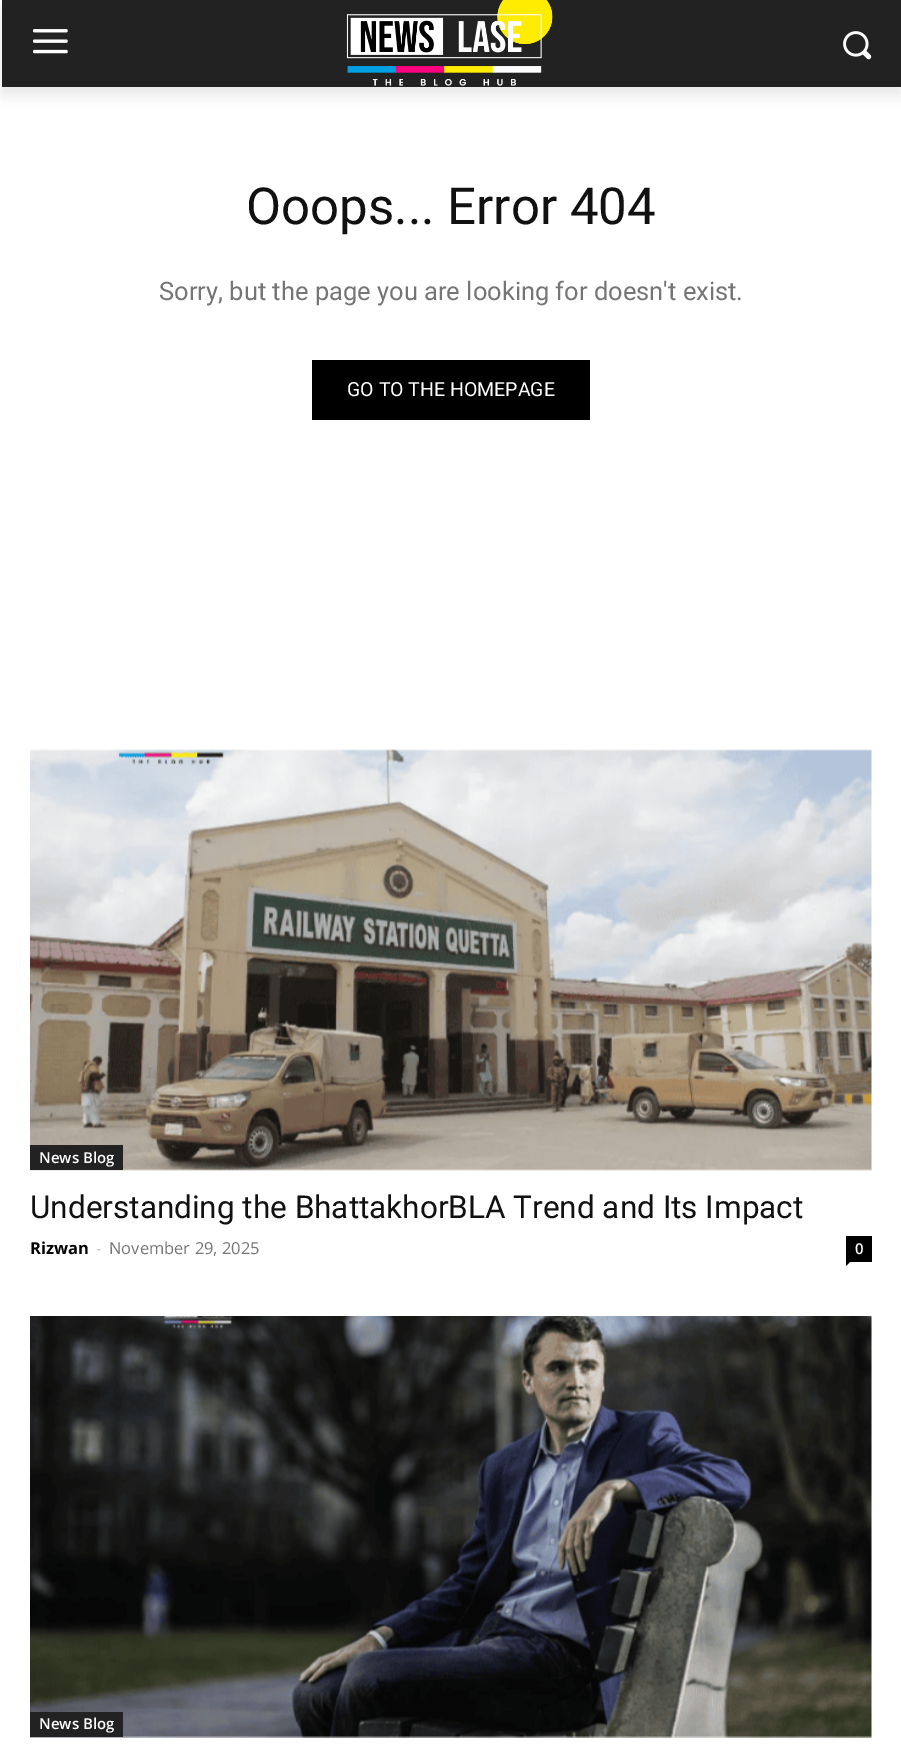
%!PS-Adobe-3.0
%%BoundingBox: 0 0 901 1764
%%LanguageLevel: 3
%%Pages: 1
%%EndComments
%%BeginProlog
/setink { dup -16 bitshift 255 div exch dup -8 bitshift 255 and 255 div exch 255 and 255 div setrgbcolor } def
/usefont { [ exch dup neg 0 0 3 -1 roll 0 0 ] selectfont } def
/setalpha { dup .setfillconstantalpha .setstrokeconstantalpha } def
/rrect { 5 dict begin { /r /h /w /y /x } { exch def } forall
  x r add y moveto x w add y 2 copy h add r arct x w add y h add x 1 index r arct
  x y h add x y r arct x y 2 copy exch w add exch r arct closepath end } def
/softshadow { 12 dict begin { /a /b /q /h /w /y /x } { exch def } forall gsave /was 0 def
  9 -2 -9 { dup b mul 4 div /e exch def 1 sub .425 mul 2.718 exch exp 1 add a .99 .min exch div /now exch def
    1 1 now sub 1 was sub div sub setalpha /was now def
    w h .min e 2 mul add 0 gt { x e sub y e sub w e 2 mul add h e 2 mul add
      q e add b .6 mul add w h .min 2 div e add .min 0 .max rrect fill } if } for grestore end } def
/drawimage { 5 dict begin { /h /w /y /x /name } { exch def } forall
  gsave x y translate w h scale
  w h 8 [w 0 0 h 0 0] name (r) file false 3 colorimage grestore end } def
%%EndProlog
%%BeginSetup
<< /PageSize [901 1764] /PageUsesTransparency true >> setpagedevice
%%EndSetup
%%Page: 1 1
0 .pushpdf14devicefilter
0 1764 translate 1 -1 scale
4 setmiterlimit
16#FFFFFF setink
0 0 901 1764 rectfill
16#222222 setink
2 0 899 87 rectfill
(img1.raw) 33 29 35 25 drawimage
(img2.raw) 346 0 207 86 drawimage
(img3.raw) 843 31 29 29 drawimage
gsave
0 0 moveto 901 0 lineto 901 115 lineto 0 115 lineto closepath 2 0 moveto 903 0 lineto 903 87 lineto 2 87 lineto closepath eoclip newpath
16#000000 setink
2 9 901 87 0 6 0.08 softshadow
grestore
/Roboto-Regular 51 usefont
16#111111 setink
246 224 moveto (Ooops... Error 404) show
/Roboto-Regular 25.5 usefont
16#757575 setink
159 300 moveto (Sorry, but the page you are looking for doesn't exist.) show
16#000000 setink
312 360 278 60 rectfill
/Roboto-Regular 19.5 usefont
16#FFFFFF setink
347 396 moveto (GO TO THE HOMEPAGE) show
(img4.raw) 30 749 842 422 drawimage
16#222222 setink
30 1145 93 25 rectfill
/OpenSans-SemiBold 15 usefont
16#FFFFFF setink
39 1163 moveto (News Blog) show
/Roboto-Regular 31.5 usefont
16#111111 setink
30 1218 moveto (Understanding the BhattakhorBLA Trend and Its Impact) show
/OpenSans-Bold 16.5 usefont
16#000000 setink
30 1254 moveto (Rizwan) show
/OpenSans-Regular 16.5 usefont
16#CCCCCC setink
96 1254 moveto (-) show
16#757575 setink
109 1254 moveto (November 29, 2025) show
16#000000 setink
846 1236 26 26 rectfill
/OpenSans-SemiBold 15 usefont
16#FFFFFF setink
855 1254 moveto (0) show
16#000000 setink
846 1261.5 moveto 850.5 1261.5 lineto 846 1266 lineto closepath fill
(img5.raw) 30 1316 842 422 drawimage
16#222222 setink
30 1712 93 25 rectfill
16#FFFFFF setink
39 1729 moveto (News Blog) show
.poppdf14devicefilter showpage
%%EOF
